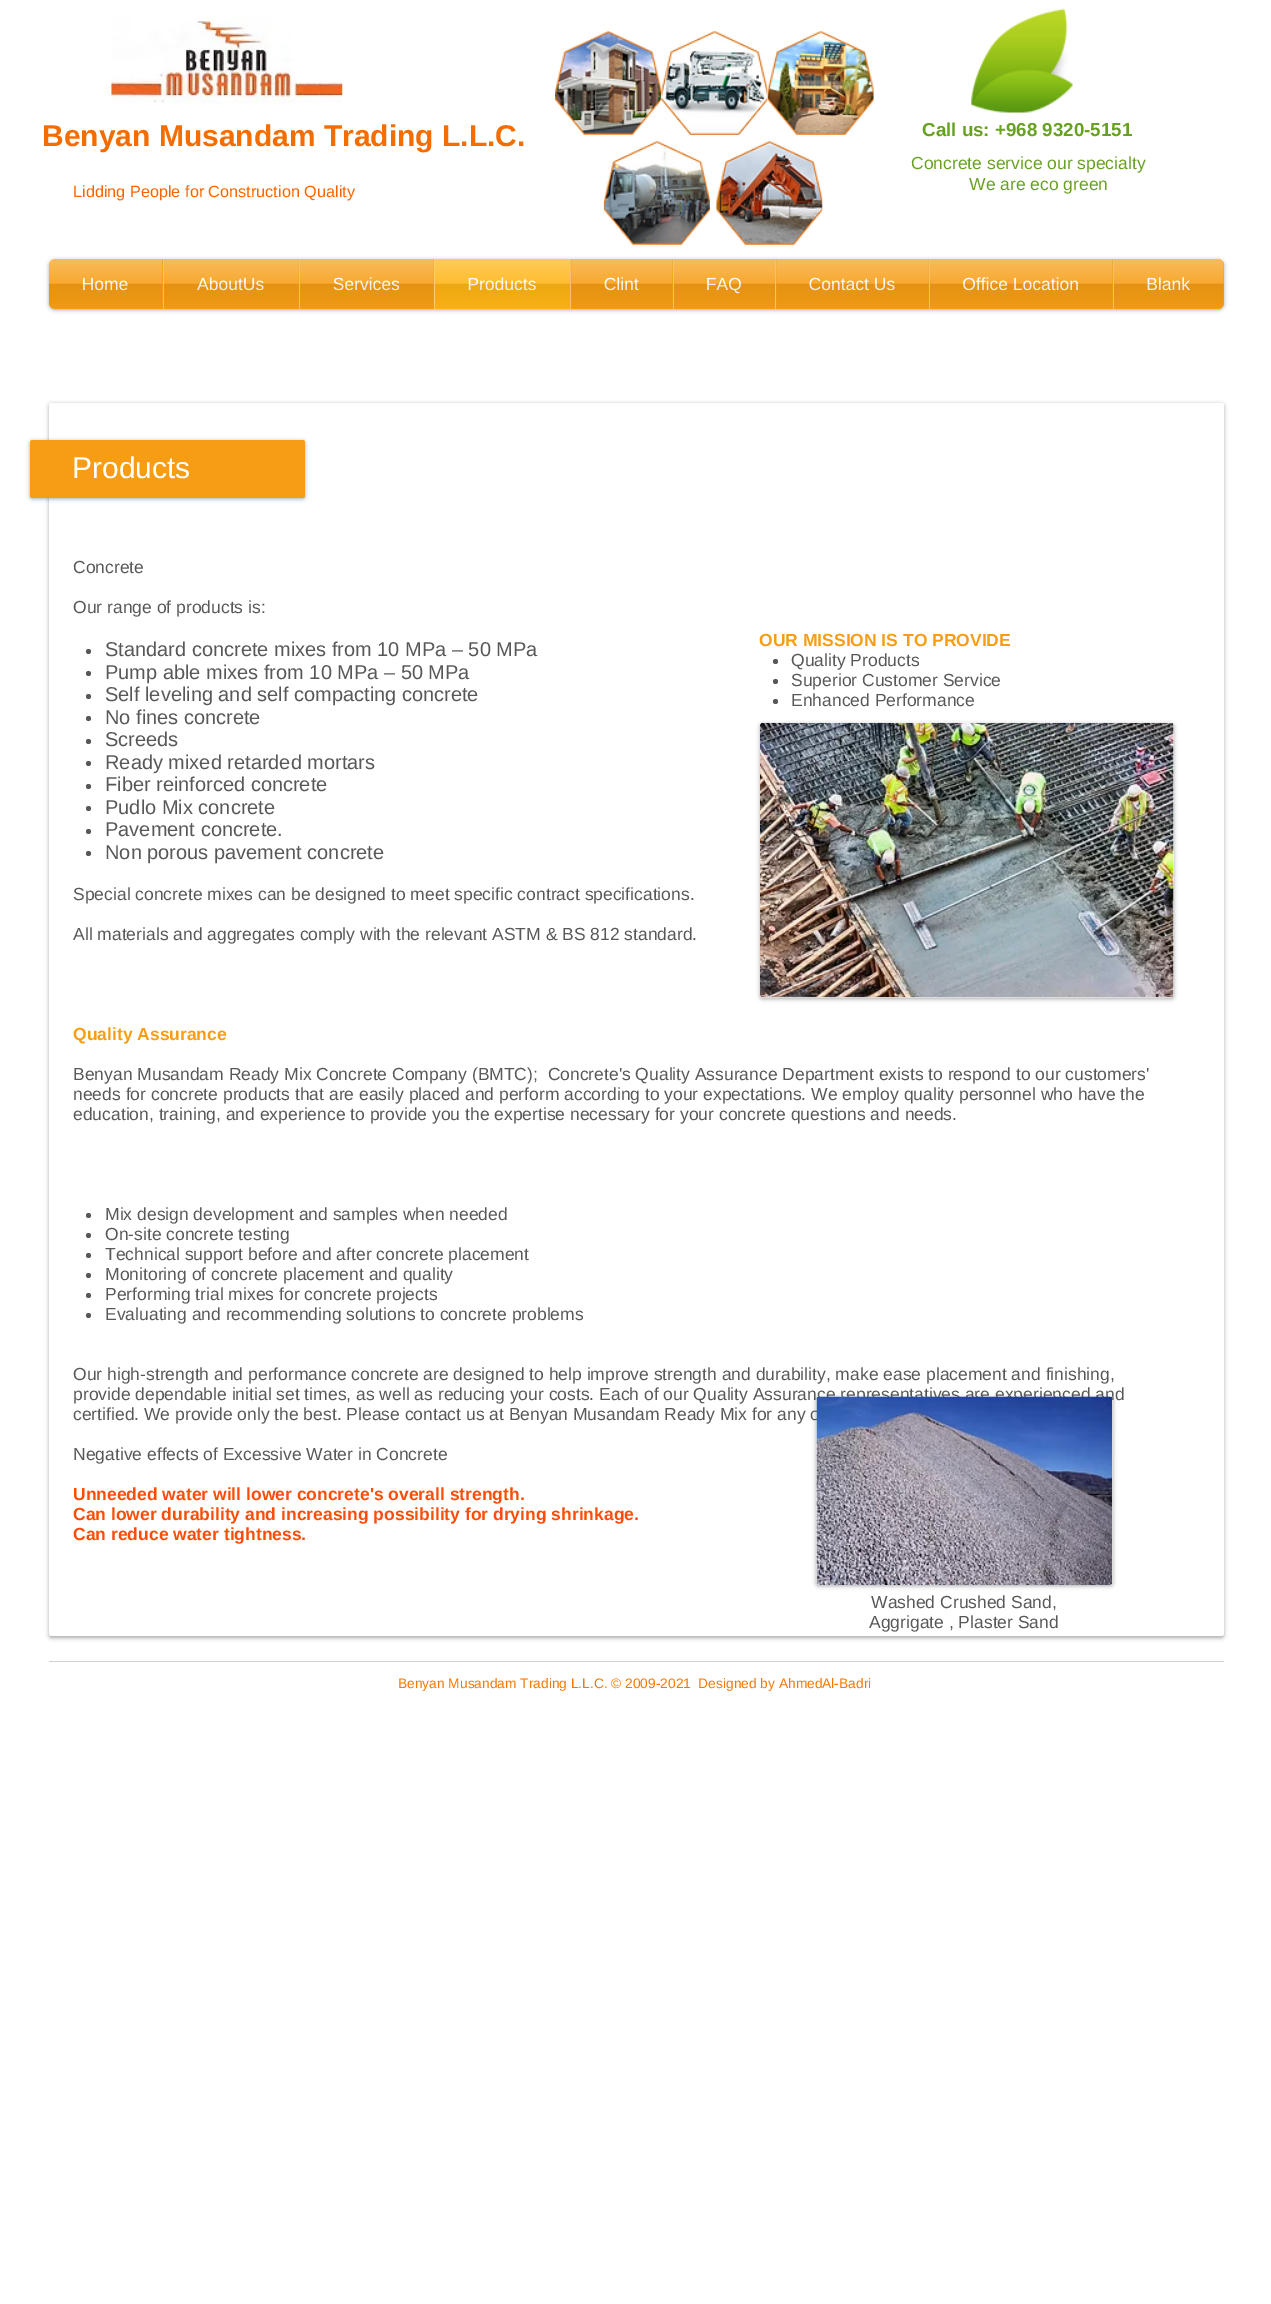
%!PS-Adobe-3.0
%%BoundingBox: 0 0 1271 2304
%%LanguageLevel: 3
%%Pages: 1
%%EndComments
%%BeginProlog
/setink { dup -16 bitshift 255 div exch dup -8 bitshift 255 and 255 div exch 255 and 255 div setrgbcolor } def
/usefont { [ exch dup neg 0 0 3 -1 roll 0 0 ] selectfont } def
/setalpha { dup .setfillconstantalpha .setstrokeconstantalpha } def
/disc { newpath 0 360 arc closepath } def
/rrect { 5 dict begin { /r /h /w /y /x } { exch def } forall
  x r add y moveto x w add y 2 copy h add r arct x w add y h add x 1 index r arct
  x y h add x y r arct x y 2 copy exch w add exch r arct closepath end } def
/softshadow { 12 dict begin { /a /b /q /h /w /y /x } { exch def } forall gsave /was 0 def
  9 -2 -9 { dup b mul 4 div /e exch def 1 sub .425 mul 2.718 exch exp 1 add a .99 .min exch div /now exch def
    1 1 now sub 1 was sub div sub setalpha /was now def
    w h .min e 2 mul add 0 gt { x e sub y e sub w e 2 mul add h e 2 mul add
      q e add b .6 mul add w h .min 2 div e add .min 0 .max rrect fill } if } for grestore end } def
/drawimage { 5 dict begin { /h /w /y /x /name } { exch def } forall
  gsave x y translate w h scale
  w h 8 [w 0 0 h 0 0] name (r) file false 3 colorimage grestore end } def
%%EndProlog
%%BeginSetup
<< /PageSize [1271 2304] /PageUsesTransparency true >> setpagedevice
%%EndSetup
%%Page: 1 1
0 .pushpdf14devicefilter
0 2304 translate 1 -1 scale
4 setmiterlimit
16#FFFFFF setink
0 0 1271 2304 rectfill
(img1.raw) 111 17 232 87 drawimage
(img2.raw) 555 31 107 104 drawimage
(img3.raw) 661 31 107 104 drawimage
(img4.raw) 767 31 107 104 drawimage
(img5.raw) 969 8 104 105 drawimage
/LiberationSans-Bold 30 usefont
16#F46D01 setink
42 146 moveto (Benyan Musandam Trading L.L.C.) show
(img6.raw) 603 141 107 104 drawimage
(img7.raw) 716 141 107 104 drawimage
/LiberationSans-Bold 18.75 usefont
16#68A122 setink
922 136 moveto (Call us: +968 9320-5151) show
/LiberationSans-Regular 16.25 usefont
16#F96400 setink
73 197 moveto (Lidding People for Construction Quality) show
/LiberationSans-Regular 17.5 usefont
16#68A122 setink
911 169 moveto (Concrete service our specialty) show
969 190 moveto (We are eco green) show
16#000000 setink
49 260 1175 50 6 2 0.33 softshadow
(img8.raw) 49 259 1175 46 drawimage
16#F69D15 setink
55 259 moveto 163 259 lineto 163 309 lineto 55 309 lineto 51.5 309 49 306.5 49 303 curveto 49 265 lineto 49 261.5 51.5 259 55 259 curveto closepath fill
16#FFFFFF setink
82 290 moveto (Home) show
(img9.raw) 49 259 114 49 drawimage
16#F69D15 setink
164 259 135 50 rectfill
16#F9C069 setink
163 259 1 50 rectfill
16#FFFFFF setink
197 290 moveto (AboutUs) show
(img10.raw) 163 259 136 49 drawimage
16#F69D15 setink
300 259 134 50 rectfill
16#F9C069 setink
299 259 1 50 rectfill
16#FFFFFF setink
333 290 moveto (Services) show
(img11.raw) 300 259 134 49 drawimage
16#FFB414 setink
435 259 135 50 rectfill
16#FFCF69 setink
434 259 1 50 rectfill
16#FFFFFF setink
467 290 moveto (Products) show
(img12.raw) 435 259 135 49 drawimage
16#F69D15 setink
571 259 102 50 rectfill
16#F9C069 setink
570 259 1 50 rectfill
16#FFFFFF setink
604 290 moveto (Clint) show
(img13.raw) 571 259 102 49 drawimage
16#F69D15 setink
674 259 101 50 rectfill
16#F9C069 setink
673 259 1 50 rectfill
16#FFFFFF setink
706 290 moveto (FAQ) show
(img14.raw) 673 259 102 49 drawimage
16#F69D15 setink
776 259 153 50 rectfill
16#F9C069 setink
775 259 1 50 rectfill
16#FFFFFF setink
809 290 moveto (Contact Us) show
(img15.raw) 776 259 153 49 drawimage
16#F69D15 setink
930 259 183 50 rectfill
16#F9C069 setink
929 259 1 50 rectfill
16#FFFFFF setink
962 290 moveto (Office Location) show
(img16.raw) 930 259 183 49 drawimage
16#F69D15 setink
1113 259 moveto 1218 259 lineto 1221.5 259 1224 261.5 1224 265 curveto 1224 303 lineto 1224 306.5 1221.5 309 1218 309 curveto 1113 309 lineto closepath fill
16#F9C069 setink
1113 259 1 50 rectfill
16#FFFFFF setink
1146 290 moveto (Blank) show
(img17.raw) 1114 259 110 49 drawimage
16#000000 setink
49 404 1175 1234 2.5 2 0.33 softshadow
16#FFFFFF setink
49 403 1175 1233 2.5 rrect fill
16#000000 setink
30 441 275 58 2.5 2 0.33 softshadow
16#F69D15 setink
30 440 275 58 2.5 rrect fill
/LiberationSans-Regular 30 usefont
16#FFFFFF setink
72 478 moveto (Products) show
/LiberationSans-Regular 17.5 usefont
16#585858 setink
73 573 moveto (Concrete) show
73 613 moveto (Our range of products is:) show
88.5 651.5 2.5 disc fill
/LiberationSans-Regular 20 usefont
105 656 moveto (Standard concrete mixes from 10 MPa – 50 MPa) show
88.5 673.5 2.5 disc fill
105 679 moveto (Pump able mixes from 10 MPa – 50 MPa) show
88.5 696.5 2.5 disc fill
105 701 moveto (Self leveling and self compacting concrete) show
88.5 718.5 2.5 disc fill
105 724 moveto (No fines concrete) show
88.5 741.5 2.5 disc fill
105 746 moveto (Screeds) show
88.5 763.5 2.5 disc fill
105 769 moveto (Ready mixed retarded mortars) show
88.5 786.5 2.5 disc fill
105 791 moveto (Fiber reinforced concrete) show
88.5 808.5 2.5 disc fill
105 814 moveto (Pudlo Mix concrete) show
88.5 831.5 2.5 disc fill
105 836 moveto (Pavement concrete.) show
88.5 853.5 2.5 disc fill
105 859 moveto (Non porous pavement concrete) show
/LiberationSans-Regular 17.5 usefont
73 900 moveto (Special concrete mixes can be designed to meet specific contract specifications.) show
73 940 moveto (All materials and aggregates comply with the relevant ASTM & BS 812 standard.) show
/LiberationSans-Bold 17.5 usefont
16#F69D15 setink
73 1040 moveto (Quality Assurance) show
/LiberationSans-Regular 17.5 usefont
16#585858 setink
[
    [(Benyan Musandam Ready Mix Concrete Company \(BMTC\);  Concrete's Quality Assurance Department exists to respond to our customers') 73 1080]
    [(needs for concrete products that are easily placed and perform according to your expectations. We employ quality personnel who have the) 73 1100]
    [(education, training, and experience to provide you the expertise necessary for your concrete questions and needs.) 73 1120]
] { aload pop moveto show } forall
88.5 1215.5 2.5 disc fill
105 1220 moveto (Mix design development and samples when needed) show
88.5 1235.5 2.5 disc fill
105 1240 moveto (On-site concrete testing) show
88.5 1255.5 2.5 disc fill
105 1260 moveto (Technical support before and after concrete placement) show
88.5 1275.5 2.5 disc fill
105 1280 moveto (Monitoring of concrete placement and quality) show
88.5 1295.5 2.5 disc fill
105 1300 moveto (Performing trial mixes for concrete projects) show
88.5 1315.5 2.5 disc fill
[
    [(Evaluating and recommending solutions to concrete problems) 105 1320]
    [(Our high-strength and performance concrete are designed to help improve strength and durability, make ease placement and finishing,) 73 1380]
    [(provide dependable initial set times, as well as reducing your costs. Each of our Quality Assurance representatives are experienced and) 73 1400]
    [(certified. We provide only the best. Please contact us at Benyan Musandam Ready Mix for any o) 73 1420]
    [(Negative effects of Excessive Water in Concrete) 73 1460]
] { aload pop moveto show } forall
/LiberationSans-Bold 17.5 usefont
16#FB4C08 setink
[
    [(Unneeded water will lower concrete's overall strength.) 73 1500]
    [(Can lower durability and increasing possibility for drying shrinkage.) 73 1520]
    [(Can reduce water tightness.) 73 1540]
] { aload pop moveto show } forall
16#F69D15 setink
759 646 moveto (OUR MISSION IS TO PROVIDE) show
16#585858 setink
775.5 661.5 2.5 disc fill
/LiberationSans-Regular 17.5 usefont
791 666 moveto (Quality Products) show
775.5 681.5 2.5 disc fill
791 686 moveto (Superior Customer Service) show
775.5 701.5 2.5 disc fill
791 706 moveto (Enhanced Performance) show
16#000000 setink
760 724 414 275 2.5 2 0.33 softshadow
(img18.raw) 760 722 414 276 drawimage
/LiberationSans-Regular 15 usefont
16#9C9598 setink
1140 981 moveto (1/5) show
16#000000 setink
816 1398 297 188 2.5 2 0.33 softshadow
(img19.raw) 816 1396 297 189 drawimage
/LiberationSans-Regular 17.5 usefont
16#585858 setink
871 1608 moveto (Washed Crushed Sand,) show
869 1628 moveto (Aggrigate , Plaster Sand) show
16#D0D0D0 setink
49 1661 1175 1 rectfill
/LiberationSans-Regular 13.75 usefont
16#F67700 setink
398 1688 moveto (Benyan Musandam Trading L.L.C. © 2009-2021  Designed by AhmedAl-Badri) show
.poppdf14devicefilter showpage
%%EOF
